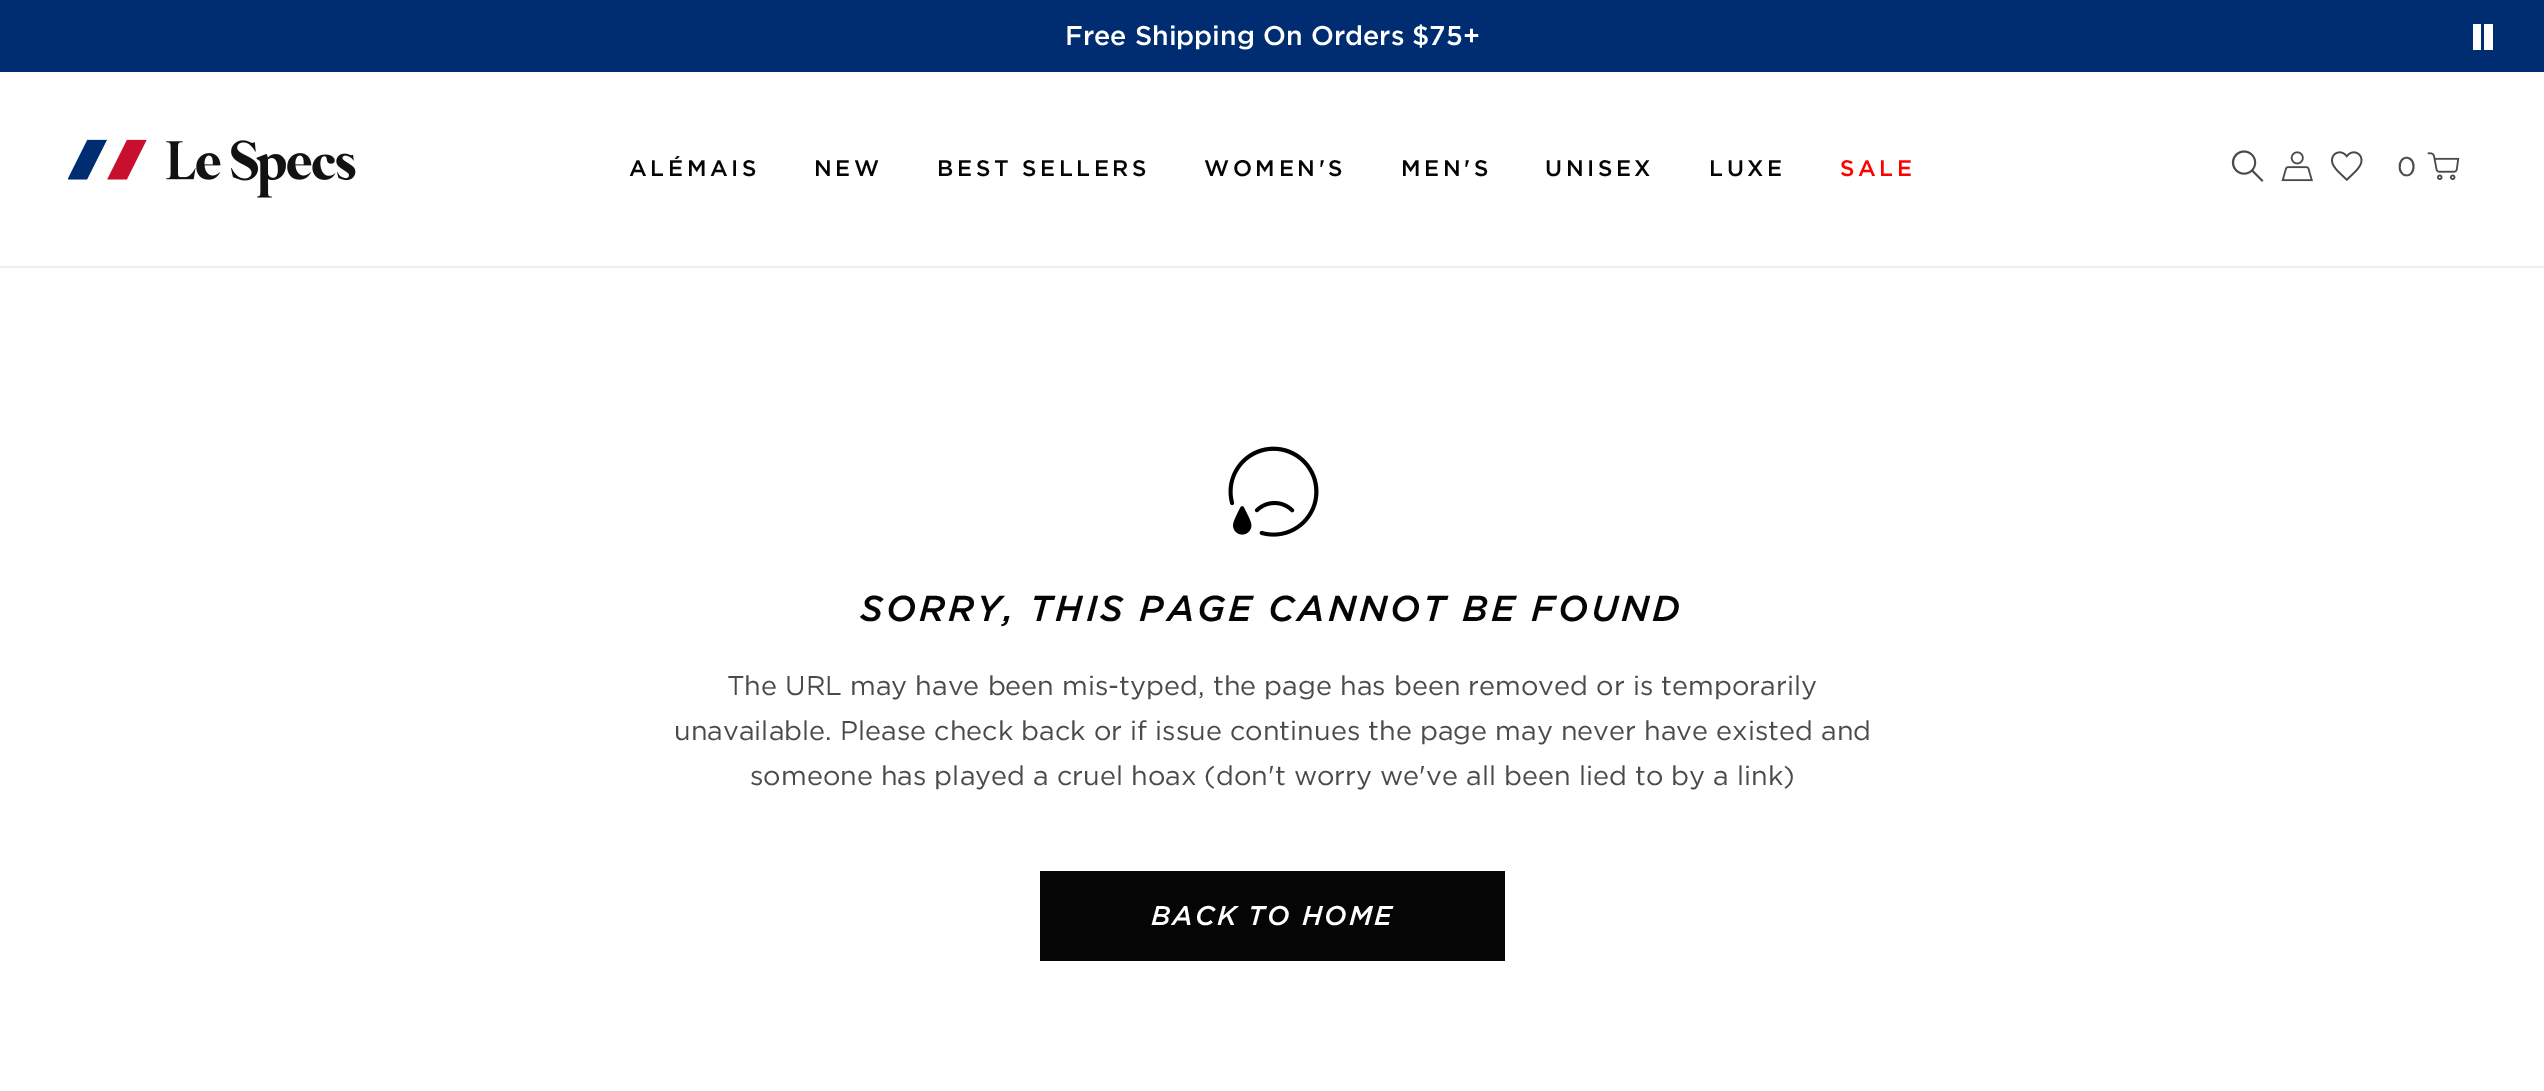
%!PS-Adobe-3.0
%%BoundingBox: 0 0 2544 1091
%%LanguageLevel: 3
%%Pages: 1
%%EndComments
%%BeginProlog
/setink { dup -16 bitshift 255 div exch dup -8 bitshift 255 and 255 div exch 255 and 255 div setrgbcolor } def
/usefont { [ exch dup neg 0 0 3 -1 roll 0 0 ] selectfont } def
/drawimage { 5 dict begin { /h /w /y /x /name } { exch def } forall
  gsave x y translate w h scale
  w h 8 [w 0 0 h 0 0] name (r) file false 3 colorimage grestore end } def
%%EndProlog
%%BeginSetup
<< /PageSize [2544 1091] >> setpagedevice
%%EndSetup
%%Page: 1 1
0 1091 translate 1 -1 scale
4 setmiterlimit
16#FFFFFF setink
0 0 2544 1091 rectfill
16#002D72 setink
0 0 2544 72 rectfill
/Gotham-Medium 27 usefont
16#FFFFFF setink
1065 45 moveto (Free Shipping On Orders $75+) show
[
    [2473 24 8 26 16#FFFFFF]
    [2484 24 9 26 16#FFFFFF]
    [0 266 2544 2 16#EEEEEE]
] { aload pop setink rectfill } forall
(img1.raw) 68 139 288 59 drawimage
/Gotham-Medium 22.5 usefont
16#050505 setink
629 176 moveto 3.6 0 (ALÉMAIS) ashow
814 176 moveto 3.6 0 (NEW) ashow
937 176 moveto 3.6 0 (BEST SELLERS) ashow
1204 176 moveto 3.6 0 (WOMEN'S) ashow
1401 176 moveto 3.6 0 (MEN'S) ashow
1545 176 moveto 3.6 0 (UNISEX) ashow
1709 176 moveto 3.6 0 (LUXE) ashow
16#FF0000 setink
1840 176 moveto 3.6 0 (SALE) ashow
(img2.raw) 2231 150 33 32 drawimage
(img3.raw) 2281 151 32 31 drawimage
(img4.raw) 2331 151 32 30 drawimage
/Gotham-Regular 27 usefont
16#4A4A4A setink
2397 176 moveto (0) show
(img5.raw) 2427 152 33 28 drawimage
(img6.raw) 1228 446 91 91 drawimage
/Gotham-MediumItalic 36 usefont
16#050505 setink
860 621 moveto 2.9 0 (SORRY, THIS PAGE CANNOT BE FOUND) ashow
/Gotham-Regular 27 usefont
16#4A4A4A setink
[
    [(The URL may have been mis-typed, the page has been removed or is temporarily) 727 695]
    [(unavailable. Please check back or if issue continues the page may never have existed and) 674 740]
    [(someone has played a cruel hoax \(don't worry we've all been lied to by a link\)) 750 785]
] { aload pop moveto show } forall
16#050505 setink
1040 871 465 90 rectfill
/Gotham-MediumItalic 27 usefont
16#FFFFFF setink
1151 925 moveto 2 0 (BACK TO HOME) ashow
showpage
%%EOF
